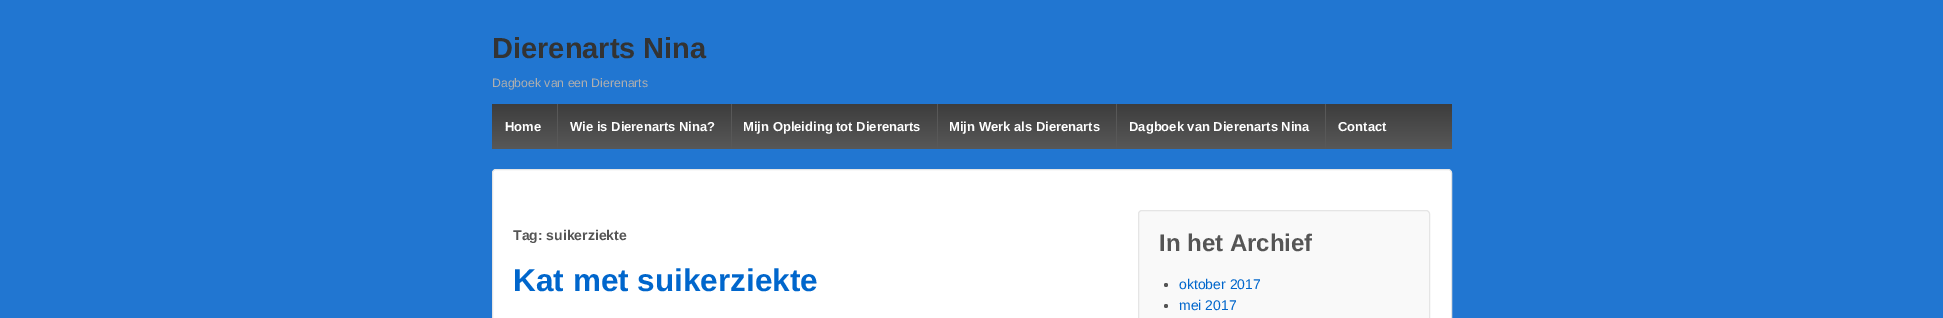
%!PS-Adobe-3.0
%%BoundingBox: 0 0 1943 318
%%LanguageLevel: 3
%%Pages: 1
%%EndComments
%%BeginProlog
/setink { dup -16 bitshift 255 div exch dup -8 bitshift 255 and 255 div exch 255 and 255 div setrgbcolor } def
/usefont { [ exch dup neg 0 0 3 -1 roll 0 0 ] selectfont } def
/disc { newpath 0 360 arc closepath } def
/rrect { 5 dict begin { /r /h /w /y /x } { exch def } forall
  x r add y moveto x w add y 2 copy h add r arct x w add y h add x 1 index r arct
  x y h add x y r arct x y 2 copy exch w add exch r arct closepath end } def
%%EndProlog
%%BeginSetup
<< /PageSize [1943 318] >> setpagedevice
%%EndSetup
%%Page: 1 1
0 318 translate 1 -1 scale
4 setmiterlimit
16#2176D1 setink
0 0 1943 318 rectfill
/LiberationSans-Bold 29 usefont
16#333333 setink
492 58 moveto (Dierenarts Nina) show
/LiberationSans-Regular 12.25 usefont
16#AFAFAF setink
492 87 moveto (Dagboek van een Dierenarts) show
gsave 492 104 moveto 1452 104 lineto 1452 149 lineto 492 149 lineto closepath clip newpath
<< /ShadingType 2 /ColorSpace /DeviceRGB /Coords [972 149 972 104] /Extend [true true] /Function << /FunctionType 2 /Domain [0 1] /C0 [0.345 0.345 0.345] /C1 [0.239 0.239 0.239] /N 1 >> >> shfill grestore
/LiberationSans-Bold 13 usefont
16#FFFFFF setink
505 131 moveto (Home) show
16#585858 setink
557 104 1 45 rectfill
16#FFFFFF setink
570 131 moveto (Wie is Dierenarts Nina?) show
16#585858 setink
731 104 1 45 rectfill
16#FFFFFF setink
743 131 moveto (Mijn Opleiding tot Dierenarts) show
16#585858 setink
937 104 1 45 rectfill
16#FFFFFF setink
949 131 moveto (Mijn Werk als Dierenarts) show
16#585858 setink
1116 104 1 45 rectfill
16#FFFFFF setink
1129 131 moveto (Dagboek van Dierenarts Nina) show
16#585858 setink
1325 104 1 45 rectfill
16#FFFFFF setink
1338 131 moveto (Contact) show
492.5 169.5 959 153 3.5 rrect gsave fill grestore
16#E5E5E5 setink
stroke
/LiberationSans-Bold 14 usefont
16#555555 setink
513 240 moveto (Tag: suikerziekte) show
/LiberationSans-Bold 31.5 usefont
16#0066CC setink
513 291 moveto (Kat met suikerziekte) show
16#F9F9F9 setink
1138.5 210.5 291 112 3.5 rrect gsave fill grestore
16#E5E5E5 setink
stroke
/LiberationSans-Bold 24 usefont
16#555555 setink
1159 251 moveto (In het Archief) show
1166 285 2 disc fill
/LiberationSans-Regular 14 usefont
16#0066CC setink
1179 289 moveto (oktober 2017) show
16#555555 setink
1166 306 2 disc fill
16#0066CC setink
1179 310 moveto (mei 2017) show
showpage
%%EOF
